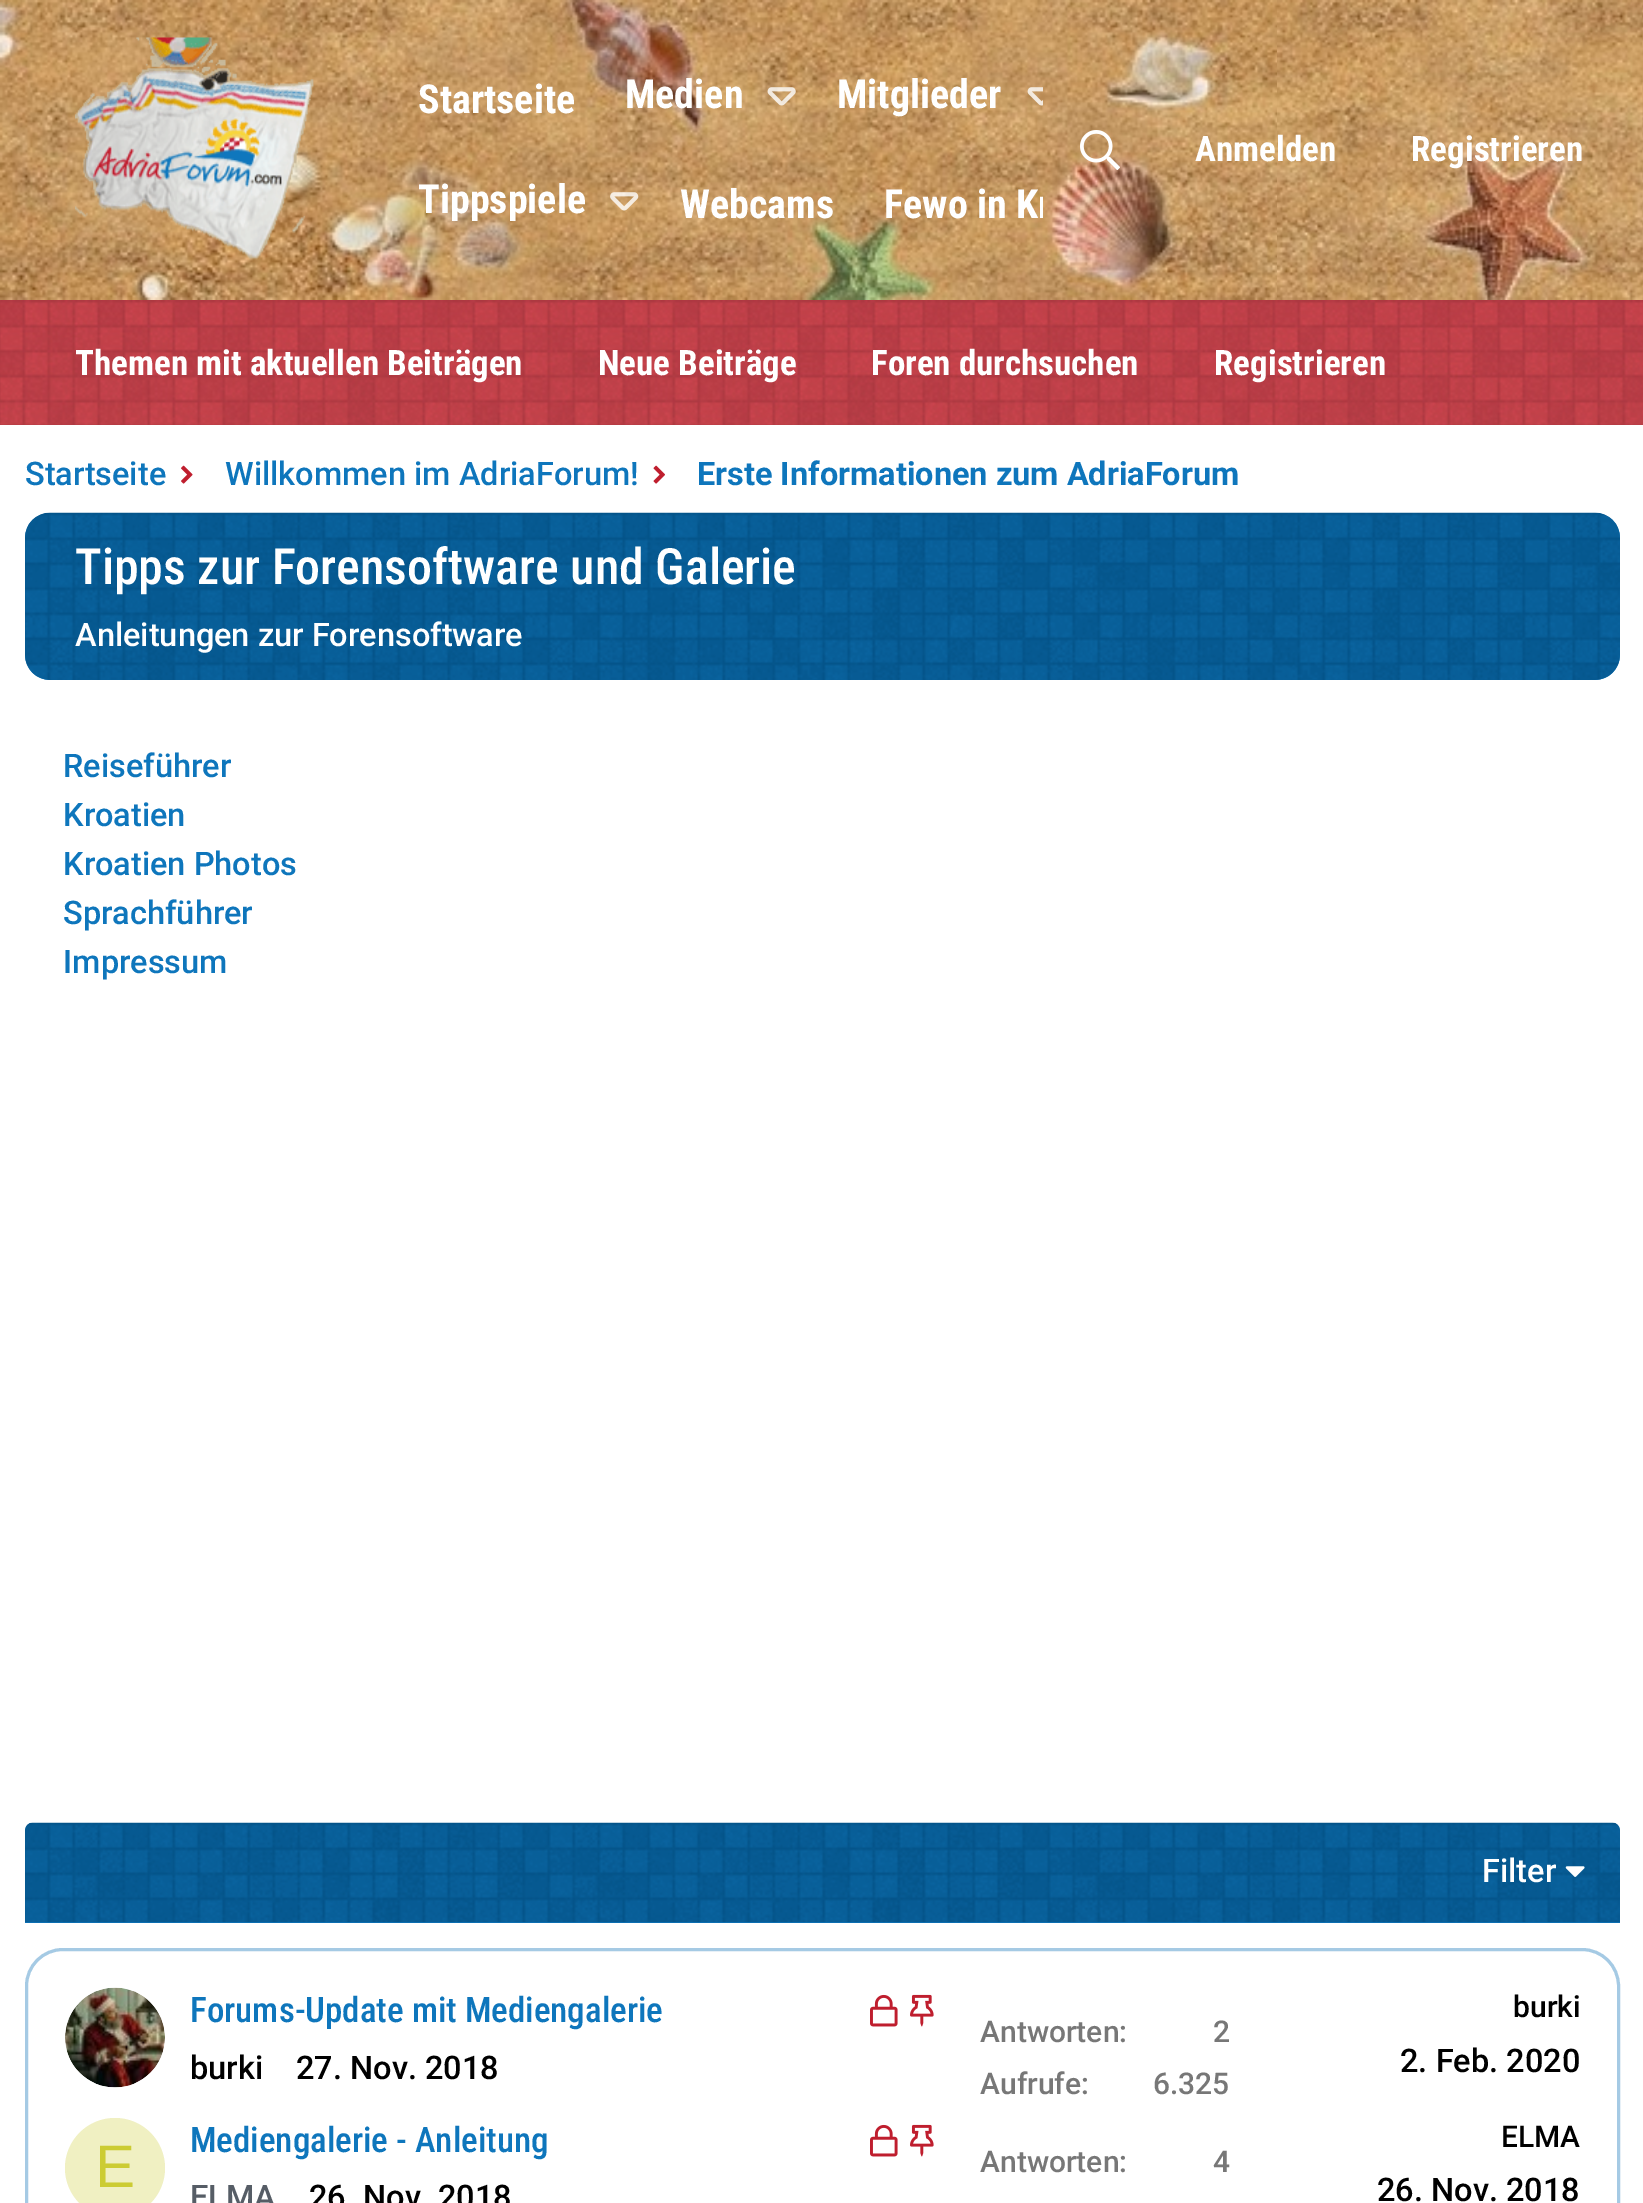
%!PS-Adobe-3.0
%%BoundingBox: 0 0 1643 2203
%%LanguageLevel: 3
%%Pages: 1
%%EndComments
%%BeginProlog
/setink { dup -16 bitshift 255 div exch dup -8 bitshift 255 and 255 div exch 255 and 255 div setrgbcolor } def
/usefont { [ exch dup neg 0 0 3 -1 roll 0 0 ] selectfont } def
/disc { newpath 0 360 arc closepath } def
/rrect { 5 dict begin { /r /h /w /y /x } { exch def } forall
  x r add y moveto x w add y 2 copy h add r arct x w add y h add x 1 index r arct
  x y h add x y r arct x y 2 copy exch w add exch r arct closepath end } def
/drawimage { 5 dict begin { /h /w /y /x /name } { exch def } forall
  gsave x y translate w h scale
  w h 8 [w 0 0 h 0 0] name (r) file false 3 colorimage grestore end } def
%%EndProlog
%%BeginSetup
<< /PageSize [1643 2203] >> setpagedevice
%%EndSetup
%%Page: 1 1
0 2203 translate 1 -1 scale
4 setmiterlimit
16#FFFFFF setink
0 0 1643 2203 rectfill
(img1.raw) 0 0 1643 300 drawimage
(img2.raw) 75 37 239 223 drawimage
/RobotoCondensed-Bold 40 usefont
418 113 moveto (Startseite) show
625 108 moveto (Medien) show
(img3.raw) 767 87 29 19 drawimage
837 108 moveto (Mitglieder) show
(img4.raw) 1027 87 16 19 drawimage
418 213 moveto (Tippspiele) show
(img5.raw) 610 192 29 19 drawimage
680 218 moveto (Webcams) show
gsave
393 45 650 210 rectclip
884 218 moveto (Fewo in Kr) show
grestore
(img6.raw) 1080 130 40 40 drawimage
/RobotoCondensed-Bold 35 usefont
1195 161 moveto (Anmelden) show
1411 161 moveto (Registrieren) show
(img7.raw) 0 300 1643 125 drawimage
[
    [(Themen mit aktuellen Beiträgen) 75 375]
    [(Neue Beiträge) 598 375]
    [(Foren durchsuchen) 871 375]
    [(Registrieren) 1214 375]
] { aload pop moveto show } forall
/Roboto-Medium 32.5 usefont
16#0E76BC setink
25 485 moveto (Startseite) show
(img8.raw) 181 465 12 19 drawimage
225 485 moveto (Willkommen im AdriaForum!) show
(img9.raw) 653 465 12 19 drawimage
/Roboto-Bold 32.5 usefont
697 485 moveto (Erste Informationen zum AdriaForum) show
25 513 1595 167 25 rrect fill
(img10.raw) 25 512 1595 168 drawimage
/RobotoCondensed-Medium 50 usefont
16#FFFFFF setink
75 584 moveto (Tipps zur Forensoftware und Galerie) show
/Roboto-Medium 32.5 usefont
75 646 moveto (Anleitungen zur Forensoftware) show
16#0E76BC setink
[
    [(Reiseführer) 63 777]
    [(Kroatien) 63 826]
    [(Kroatien Photos) 63 875]
    [(Sprachführer) 63 924]
    [(Impressum) 63 973]
] { aload pop moveto show } forall
33 1823 moveto 1612 1823 lineto 1616.5 1823 1620 1826.5 1620 1831 curveto 1620 1923 lineto 25 1923 lineto 25 1831 lineto 25 1826.5 28.5 1823 33 1823 curveto closepath fill
(img11.raw) 25 1822 1595 101 drawimage
16#FFFFFF setink
1482 1882 moveto (Filter) show
(img12.raw) 1565 1866 20 11 drawimage
16#A5CAE4 setink
3 setlinewidth
26.5 1949.5 1592 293 36.5 rrect stroke
(img13.raw) 65 1987 100 101 drawimage
/RobotoCondensed-Medium 35 usefont
16#0E76BC setink
190 2022 moveto (Forums-Update mit Mediengalerie) show
(img14.raw) 870 1994 28 33 drawimage
(img15.raw) 910 1994 24 33 drawimage
/Roboto-Medium 32.5 usefont
16#000000 setink
190 2079 moveto (burki) show
296 2079 moveto (27. Nov. 2018) show
/Roboto-Medium 30 usefont
16#777777 setink
[
    [(Antworten:) 980 2042]
    [(2) 1213 2042]
    [(Aufrufe:) 980 2094]
    [(6.325) 1153 2094]
] { aload pop moveto show } forall
16#000000 setink
1513 2017 moveto (burki) show
/Roboto-Medium 32.5 usefont
1400 2072 moveto (2. Feb. 2020) show
16#F0F0C2 setink
115 2168 50 disc fill
/LiberationSans-Regular 60 usefont
16#CCCC33 setink
95 2187 moveto (E) show
/RobotoCondensed-Medium 35 usefont
16#0E76BC setink
190 2152 moveto (Mediengalerie - Anleitung) show
(img14.raw) 870 2124 28 33 drawimage
(img15.raw) 910 2124 24 33 drawimage
/Roboto-Medium 32.5 usefont
16#565D66 setink
190 2208 moveto (ELMA) show
16#000000 setink
309 2208 moveto (26. Nov. 2018) show
/Roboto-Medium 30 usefont
16#777777 setink
980 2172 moveto (Antworten:) show
1213 2172 moveto (4) show
16#000000 setink
1501 2147 moveto (ELMA) show
/Roboto-Medium 32.5 usefont
1377 2201 moveto (26. Nov. 2018) show
showpage
%%EOF
